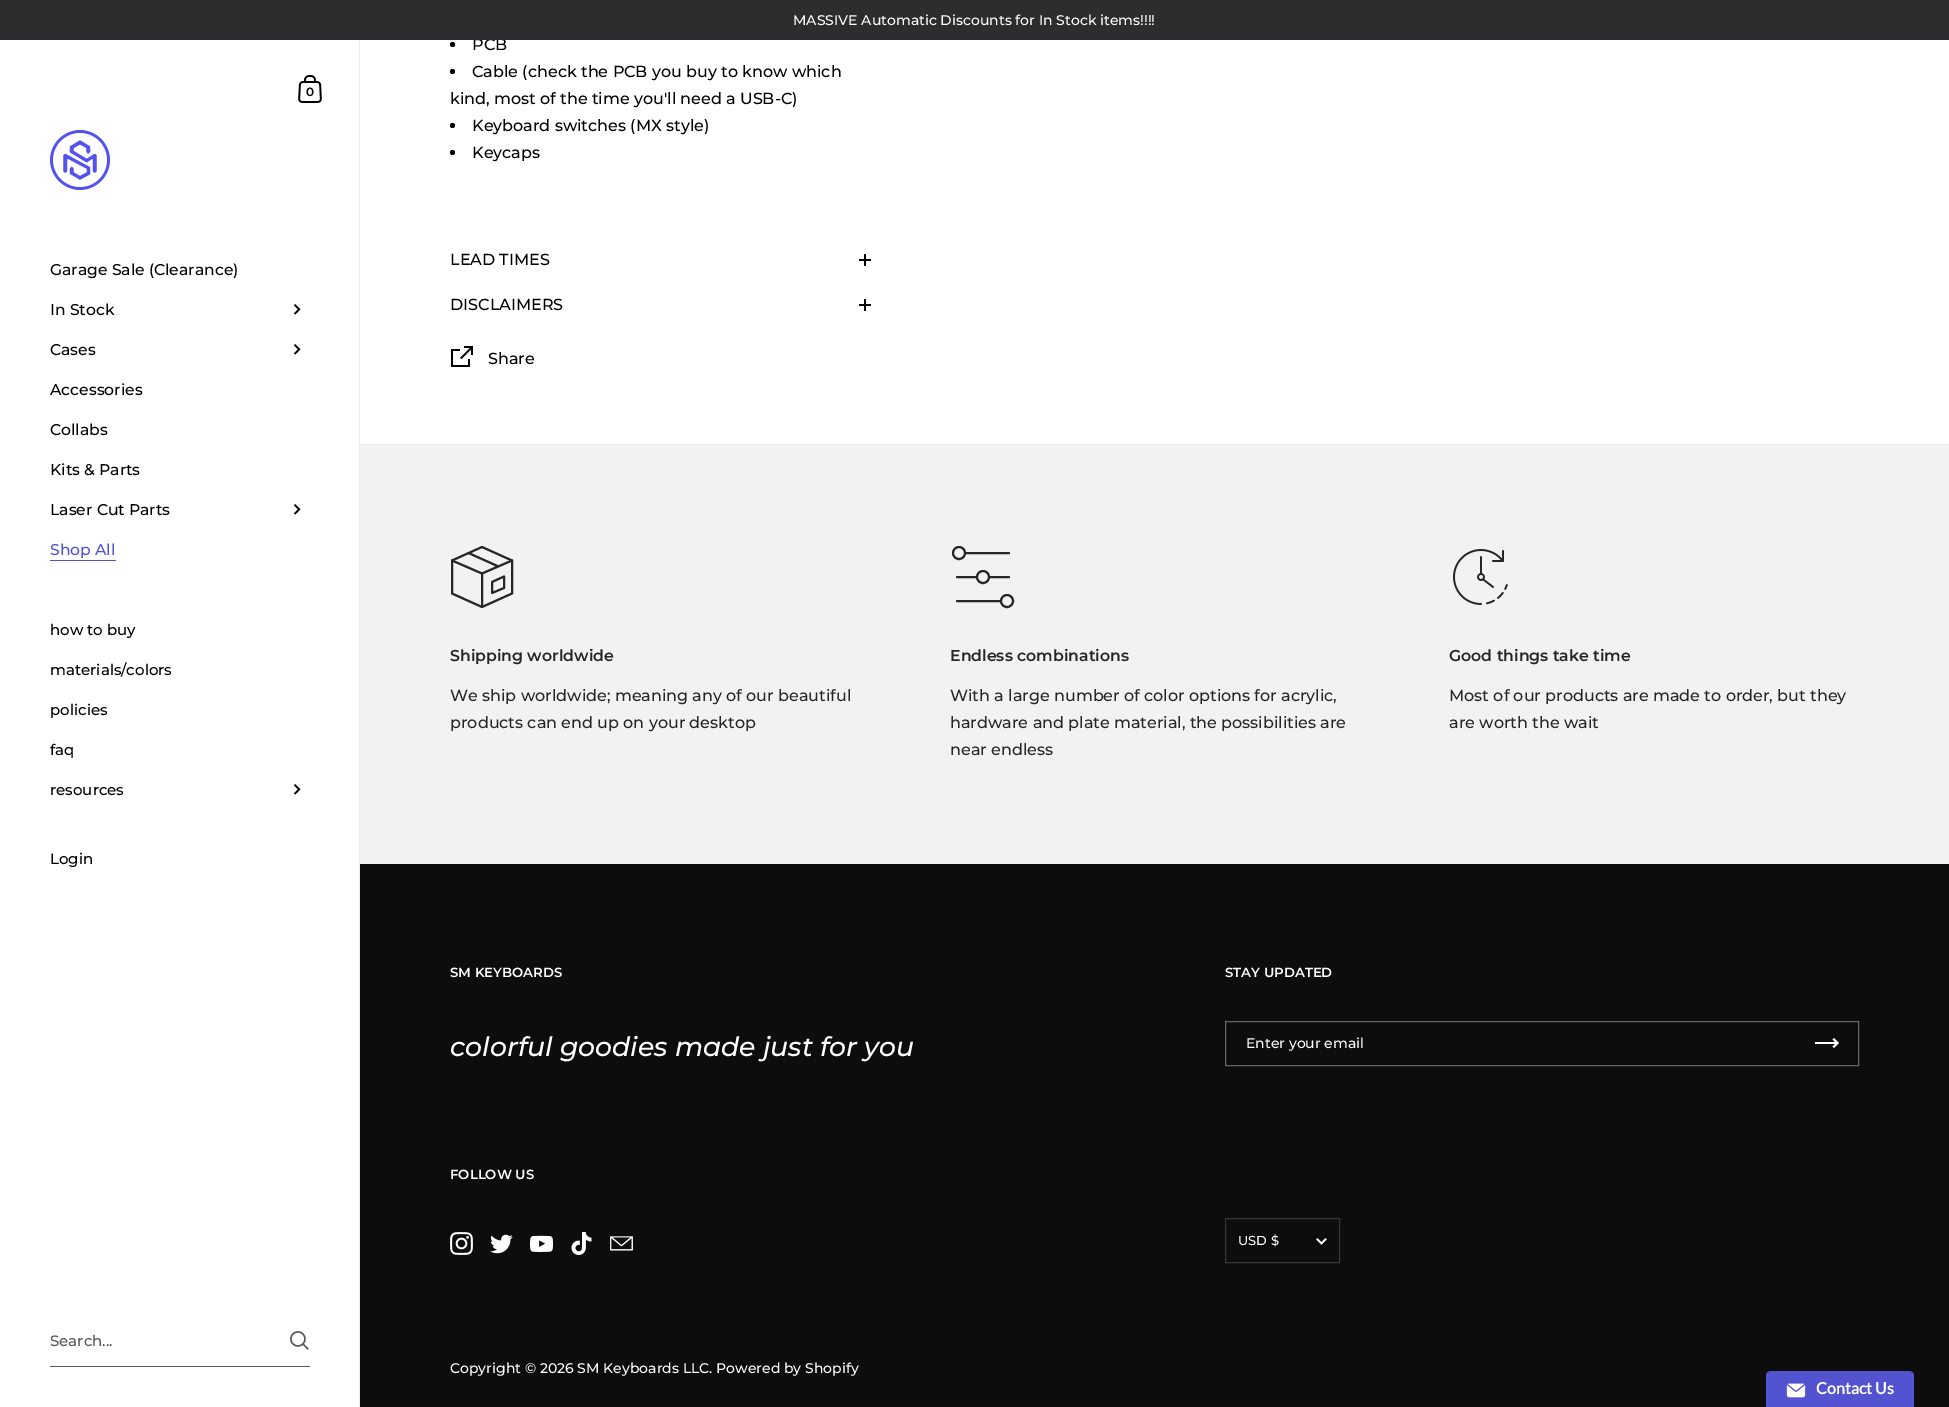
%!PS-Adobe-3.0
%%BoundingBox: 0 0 1949 1407
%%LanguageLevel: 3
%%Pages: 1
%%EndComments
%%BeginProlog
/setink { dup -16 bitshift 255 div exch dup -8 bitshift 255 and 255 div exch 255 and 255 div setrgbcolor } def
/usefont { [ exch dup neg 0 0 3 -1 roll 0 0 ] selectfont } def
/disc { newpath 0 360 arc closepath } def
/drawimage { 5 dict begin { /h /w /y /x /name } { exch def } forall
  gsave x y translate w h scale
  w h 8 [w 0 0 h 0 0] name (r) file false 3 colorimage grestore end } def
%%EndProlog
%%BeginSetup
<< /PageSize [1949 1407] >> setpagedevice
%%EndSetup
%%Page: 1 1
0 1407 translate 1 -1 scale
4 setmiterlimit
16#FFFFFF setink
0 0 1949 1407 rectfill
/Montserrat-Medium 16 usefont
16#000000 setink
472 50 moveto (PCB) show
16#2D2D30 setink
0 0 1949 40 rectfill
/Montserrat-Medium 14 usefont
16#FFFFFF setink
793 25 moveto (MASSIVE Automatic Discounts for In Stock items!!!!) show
16#EBEBEB setink
359 40 1 1367 rectfill
(img1.raw) 298 75 24 28 drawimage
/Montserrat-SemiBold 12 usefont
16#000000 setink
306 96 moveto (0) show
(img2.raw) 50 130 60 60 drawimage
/Montserrat-Medium 15.6 usefont
50 275 moveto (Garage Sale \(Clearance\)) show
50 315 moveto (In Stock) show
(img3.raw) 293 304 8 11 drawimage
50 355 moveto (Cases) show
(img3.raw) 293 344 8 11 drawimage
[
    [(Accessories) 50 395]
    [(Collabs) 50 435]
    [(Kits & Parts) 50 475]
    [(Laser Cut Parts) 50 515]
] { aload pop moveto show } forall
(img3.raw) 293 504 8 11 drawimage
16#5353D1 setink
50 555 moveto (Shop All) show
50 560 66 1 rectfill
/Montserrat-Medium 15 usefont
16#000000 setink
[
    [(how to buy) 50 635]
    [(materials/colors) 50 675]
    [(policies) 50 715]
    [(faq) 50 755]
    [(resources) 50 795]
] { aload pop moveto show } forall
(img3.raw) 293 784 8 11 drawimage
50 864 moveto (Login) show
16#575757 setink
50 1366 260 1 rectfill
50 1346 moveto (Search...) show
(img4.raw) 290 1331 19 19 drawimage
16#EBEBEB setink
360 444 1589 1 rectfill
16#000000 setink
452.5 44.5 2.5 disc fill
452.5 71.5 2.5 disc fill
/Montserrat-Medium 16 usefont
472 77 moveto (Cable \(check the PCB you buy to know which) show
450 104 moveto (kind, most of the time you'll need a USB-C\)) show
452.5 125.5 2.5 disc fill
472 131 moveto (Keyboard switches \(MX style\)) show
452.5 152.5 2.5 disc fill
472 158 moveto (Keycaps) show
450 265 moveto (LEAD TIMES) show
(img5.raw) 859 254 12 12 drawimage
450 310 moveto (DISCLAIMERS) show
(img5.raw) 859 299 12 12 drawimage
(img6.raw) 451 346 22 21 drawimage
488 364 moveto (Share) show
16#F2F2F2 setink
360 445 1589 419 rectfill
16#262626 setink
2 setlinewidth
1 setlinejoin
512 560.5 moveto 482 547 lineto 452 560.5 lineto 452 593.5 lineto 482 607 lineto 512 593.5 lineto closepath stroke
1 setlinecap
452 560.5 moveto 482 573.5 lineto 512 560.5 lineto 468.5 553 moveto 498.5 566.5 lineto 482 573.5 moveto 482 607 lineto stroke
0 setlinecap
504 576.5 moveto 492 582 lineto 492 593 lineto 504 588 lineto closepath stroke
/Montserrat-SemiBold 15.75 usefont
450 661 moveto (Shipping worldwide) show
/Montserrat-Medium 16 usefont
450 701 moveto (We ship worldwide; meaning any of our beautiful) show
450 728 moveto (products can end up on your desktop) show
1 setlinecap
1009 553 moveto 965 553 lineto 977 577 moveto 957 577 lineto 1009 577 moveto 989 577 lineto 1001 601 moveto 957 601 lineto stroke
0 setlinecap
0 setlinejoin
959 553 6 disc stroke
983 577 6 disc stroke
1007 601 6 disc stroke
/Montserrat-SemiBold 15.75 usefont
950 661 moveto (Endless combinations) show
/Montserrat-Medium 16 usefont
[
    [(With a large number of color options for acrylic,) 950 701]
    [(hardware and plate material, the possibilities are) 950 728]
    [(near endless) 950 755]
] { aload pop moveto show } forall
(img7.raw) 1453 549 55 56 drawimage
/Montserrat-SemiBold 15.75 usefont
1449 661 moveto (Good things take time) show
/Montserrat-Medium 16 usefont
1449 701 moveto (Most of our products are made to order, but they) show
1449 728 moveto (are worth the wait) show
16#0D0D0D setink
360 864 1589 543 rectfill
/Montserrat-SemiBold 13.25 usefont
16#FFFFFF setink
450 977 moveto (SM KEYBOARDS) show
/Montserrat-MediumItalic 26.7 usefont
450 1056 moveto (colorful goodies made just for you) show
/Montserrat-SemiBold 13.25 usefont
1225 977 moveto (STAY UPDATED) show
16#646464 setink
1 setlinewidth
1225.5 1021.5 633 44 rectstroke
/Montserrat-Medium 14 usefont
16#FFFFFF setink
1246 1048 moveto (Enter your email) show
gsave
1815 1038 24 11 rectclip
1835 1044 moveto 1832.5 1046.5 lineto 1834 1048 lineto 1839 1043 lineto 1834 1038 lineto 1832.5 1039.5 lineto 1835 1042 lineto 1805 1042 lineto 1805 1044 lineto closepath eofill
grestore
/Montserrat-SemiBold 13.25 usefont
450 1179 moveto (FOLLOW US) show
(img8.raw) 450 1232 23 23 drawimage
(img9.raw) 490 1234 23 20 drawimage
(img10.raw) 530 1235 23 17 drawimage
(img11.raw) 571 1232 21 23 drawimage
(img12.raw) 610 1236 23 15 drawimage
(img13.raw) 1316 1238 11 7 drawimage
16#343434 setink
1225.5 1218.5 114 44 rectstroke
/Montserrat-Medium 13 usefont
16#FFFFFF setink
1238 1245 moveto (USD $) show
/Montserrat-Medium 14 usefont
450 1373 moveto (Copyright © 2026 SM Keyboards LLC. Powered by Shopify) show
16#5353D1 setink
1771 1371 moveto 1909 1371 lineto 1912 1371 1914 1373 1914 1376 curveto 1914 1407 lineto 1766 1407 lineto 1766 1376 lineto 1766 1373 1768 1371 1771 1371 curveto closepath fill
(img14.raw) 1786 1383 20 15 drawimage
/Lato-Bold 16 usefont
16#FFFFFF setink
1816 1394 moveto (Contact Us) show
showpage
%%EOF
